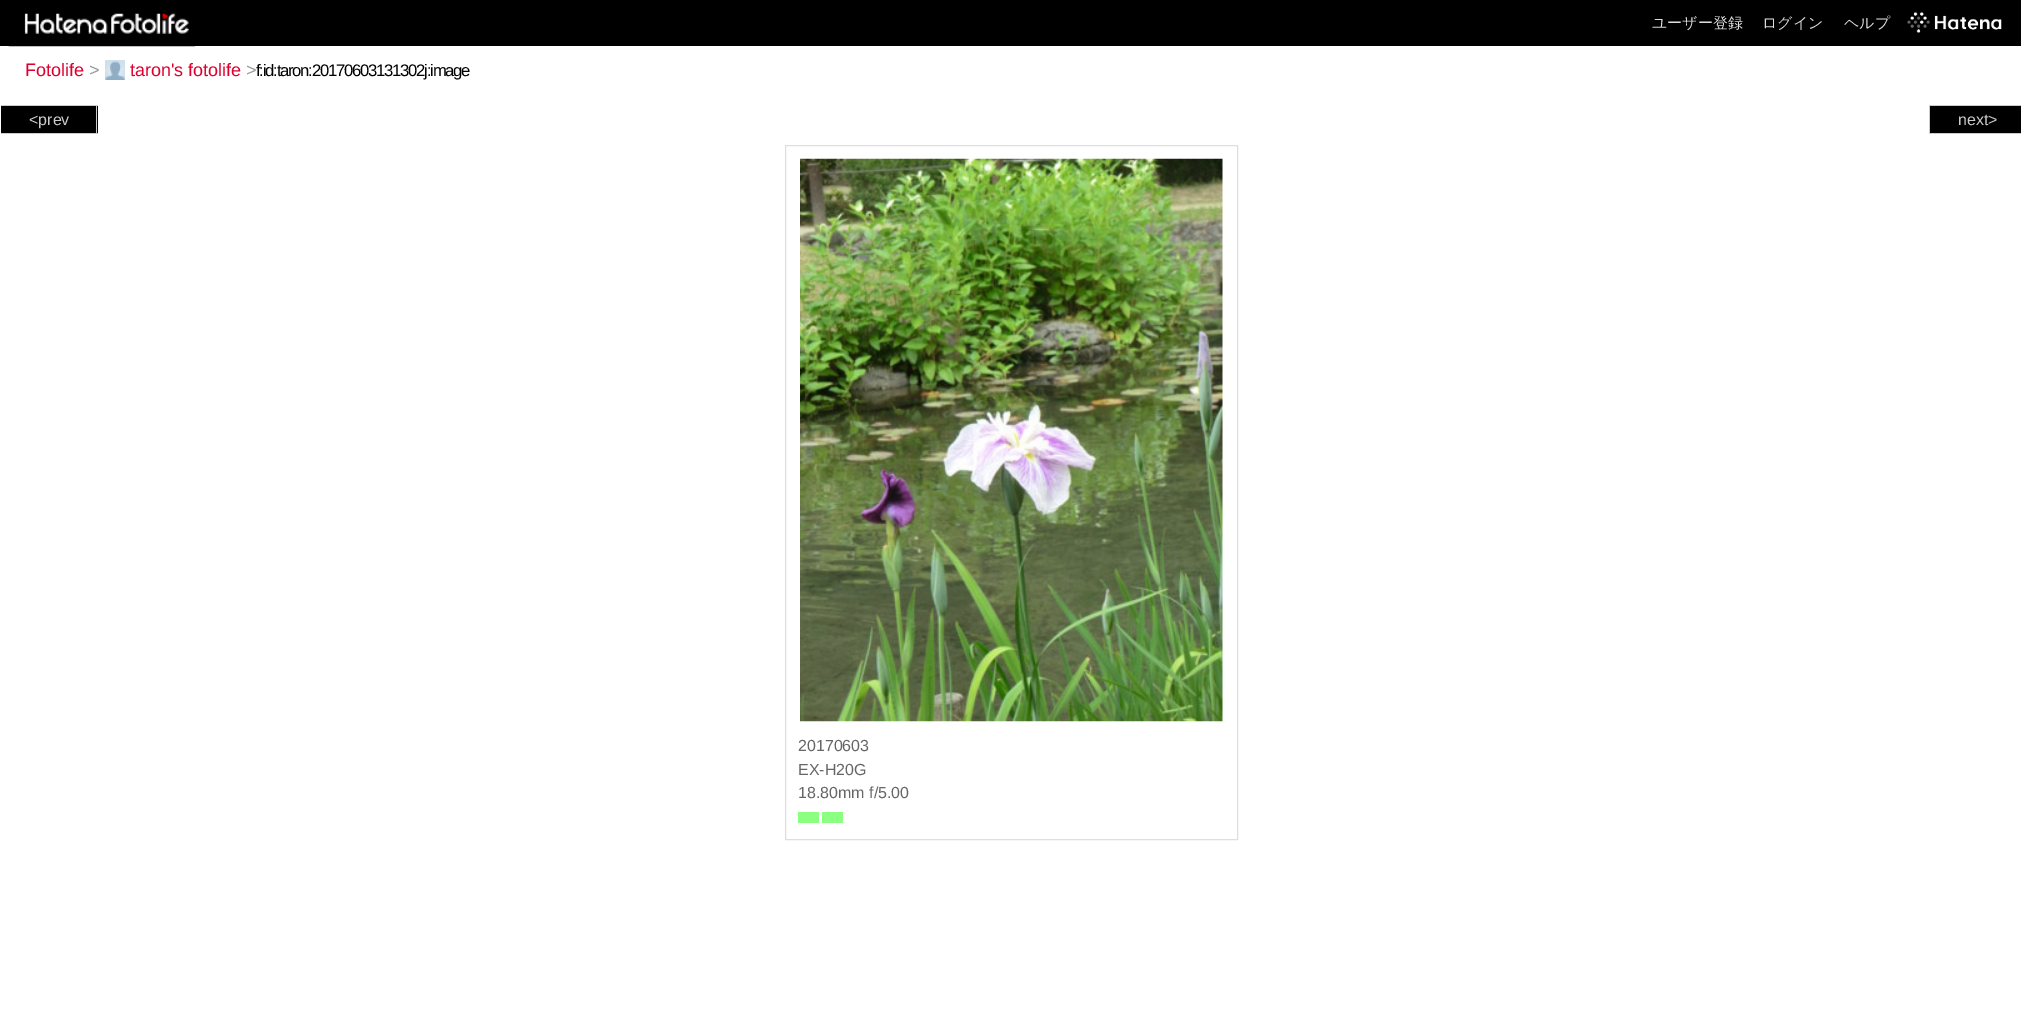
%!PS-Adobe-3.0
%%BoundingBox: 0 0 2021 1014
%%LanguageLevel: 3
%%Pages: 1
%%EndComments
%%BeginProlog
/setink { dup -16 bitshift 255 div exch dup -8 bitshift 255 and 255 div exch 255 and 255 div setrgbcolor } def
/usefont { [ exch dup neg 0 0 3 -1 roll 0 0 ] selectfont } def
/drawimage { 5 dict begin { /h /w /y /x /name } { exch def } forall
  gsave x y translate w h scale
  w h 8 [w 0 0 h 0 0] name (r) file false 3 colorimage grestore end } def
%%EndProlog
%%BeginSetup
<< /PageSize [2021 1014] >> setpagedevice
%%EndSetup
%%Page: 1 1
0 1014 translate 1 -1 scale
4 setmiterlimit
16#FFFFFF setink
0 0 2021 1014 rectfill
16#000000 setink
0 0 2021 46 rectfill
(img1.raw) 8 13 104 34 drawimage
(img2.raw) 111 13 84 34 drawimage
/WenQuanYiZenHei-Medium 15 usefont
16#DDDDDD setink
[
    [(ユーザー登録) 1652 28]
    [(ログイン) 1762 28]
    [(ヘルプ) 1844 28]
] { aload pop moveto show } forall
(img3.raw) 1907 12 95 21 drawimage
/LiberationSans-Regular 18 usefont
16#DE002F setink
25 76 moveto (Fotolife) show
16#999999 setink
89 76 moveto (>) show
(img4.raw) 105 60 20 20 drawimage
16#DE002F setink
130 76 moveto (taron's fotolife) show
16#999999 setink
246 76 moveto (>) show
/LiberationSans-Regular 16.7 usefont
16#000000 setink
256 76 moveto -1.25 0 (f:id:taron:20170603131302j:image) ashow
[
    [1 106 97 27 16#000000]
    [1 105 97 1 16#CCCCCC]
    [96 105 1 29 16#CCCCCC]
    [1 133 97 1 16#CCCCCC]
] { aload pop setink rectfill } forall
/LiberationSans-Regular 16 usefont
29 125 moveto (<prev) show
[
    [1930 106 91 27 16#000000]
    [1929 105 92 1 16#CCCCCC]
    [1929 133 92 1 16#CCCCCC]
    [1929 105 1 29 16#CCCCCC]
] { aload pop setink rectfill } forall
1958 125 moveto (next>) show
16#DEDEDE setink
785.5 145.5 452 694 rectstroke
(img5.raw) 800 158 423 564 drawimage
16#666666 setink
[
    [(20170603) 798 751]
    [(EX-H20G) 798 775]
    [(18.80mm f/5.00) 798 798]
] { aload pop moveto show } forall
16#8AFF80 setink
798 812 21 11 rectfill
822 812 21 11 rectfill
showpage
%%EOF
